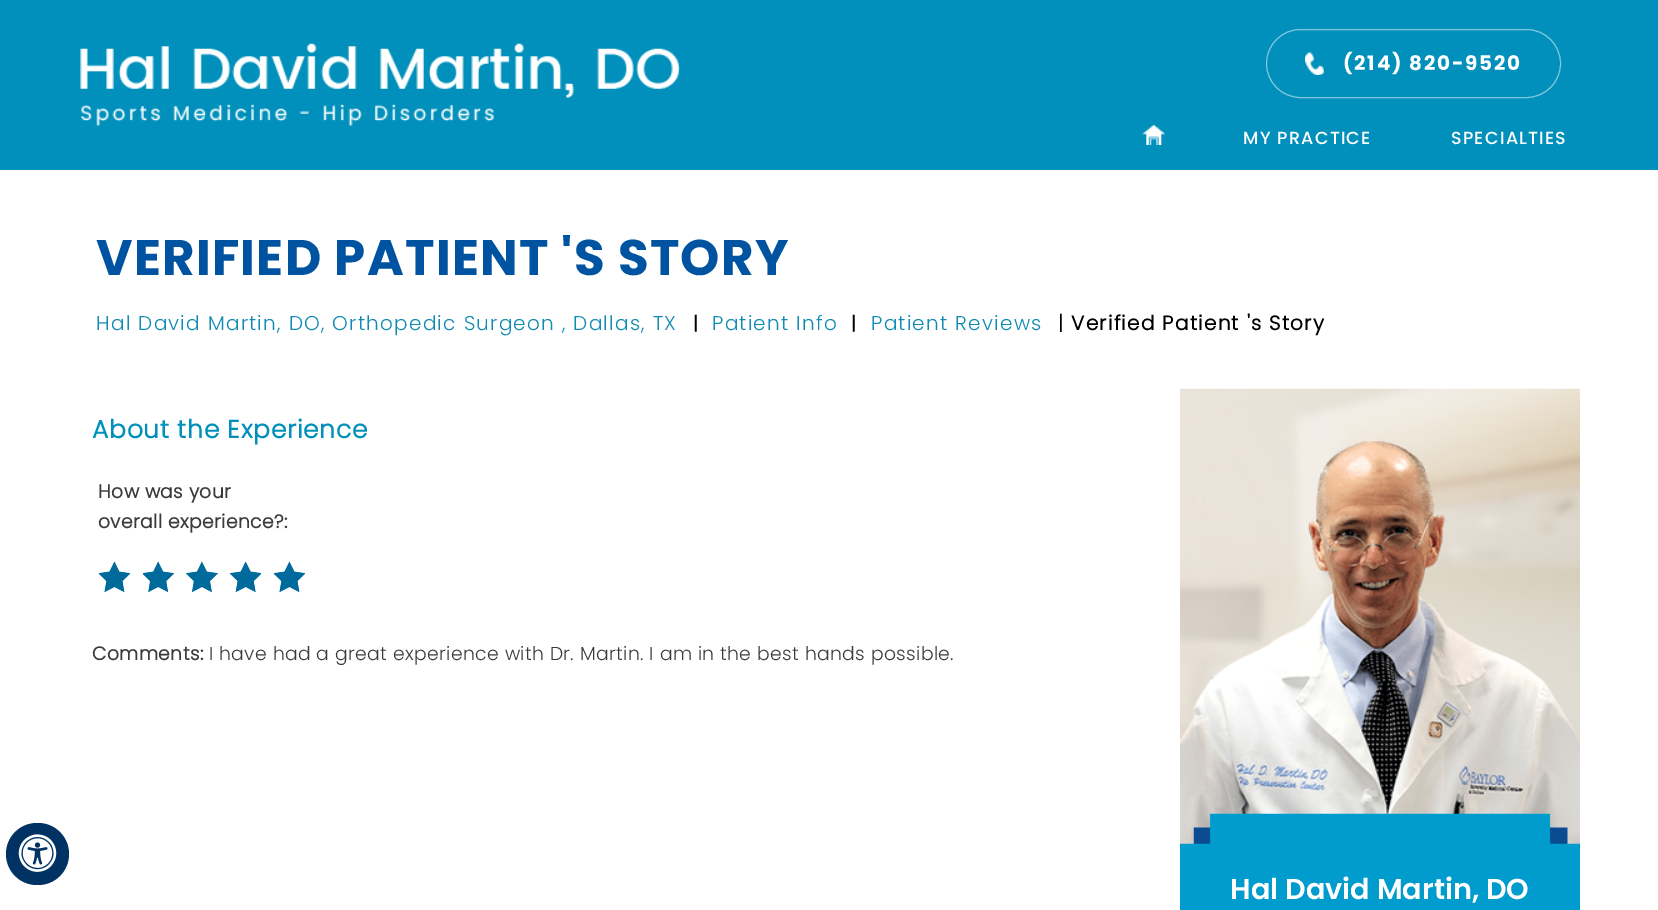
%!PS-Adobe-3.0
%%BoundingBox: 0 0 1658 910
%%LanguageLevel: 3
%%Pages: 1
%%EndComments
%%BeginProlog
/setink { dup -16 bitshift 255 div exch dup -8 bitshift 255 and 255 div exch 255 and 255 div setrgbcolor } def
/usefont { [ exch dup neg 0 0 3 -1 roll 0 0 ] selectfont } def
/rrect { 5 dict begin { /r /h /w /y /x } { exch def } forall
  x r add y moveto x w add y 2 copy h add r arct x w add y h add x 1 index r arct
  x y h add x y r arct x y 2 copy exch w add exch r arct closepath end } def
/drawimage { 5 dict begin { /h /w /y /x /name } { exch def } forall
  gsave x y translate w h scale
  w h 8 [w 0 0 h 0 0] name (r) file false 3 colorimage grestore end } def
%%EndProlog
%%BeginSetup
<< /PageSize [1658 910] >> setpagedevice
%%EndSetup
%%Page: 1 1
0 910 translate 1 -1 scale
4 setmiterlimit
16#FFFFFF setink
0 0 1658 910 rectfill
16#003263 setink
6 823 63 62 31 rrect fill
(img1.raw) 18 834 39 38 drawimage
16#0190BB setink
0 0 1658 170 rectfill
(img2.raw) 80 43 600 84 drawimage
(img3.raw) 1305 52 19 23 drawimage
16#80C8DD setink
1266.5 29.5 294 68 34 rrect stroke
/Poppins-Bold 20 usefont
16#FFFFFF setink
1343 70 moveto 1.75 0 (\(214\) 820-9520) ashow
(img4.raw) 1142 125 23 20 drawimage
/Poppins-Medium 17.5 usefont
1243 144 moveto 1.25 0 (MY PRACTICE) ashow
1451 144 moveto 1.25 0 (SPECIALTIES) ashow
/Poppins-Bold 50 usefont
16#0053A0 setink
96 275 moveto 1.25 0 (VERIFIED PATIENT 'S STORY) ashow
/Poppins-Light 20 usefont
16#128BB3 setink
96 330 moveto 1.25 0 (Hal David Martin, DO, Orthopedic Surgeon , Dallas, TX) ashow
/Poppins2-Bold 18.75 usefont
16#000000 setink
693 330 moveto (|) show
/Poppins-Light 20 usefont
16#128BB3 setink
712 330 moveto 1.25 0 (Patient Info) ashow
/Poppins2-Bold 18.75 usefont
16#000000 setink
851 330 moveto (|) show
/Poppins-Light 20 usefont
16#128BB3 setink
871 330 moveto 1.25 0 (Patient Reviews) ashow
/Poppins2-Bold 20 usefont
16#000000 setink
1058 330 moveto 1.25 0 (| Verified Patient 's Story) ashow
/Poppins2-Bold 25 usefont
16#0190BB setink
92 438 moveto 0.75 0 (About the Experience) ashow
/Poppins2-Bold 18.75 usefont
16#3B3B3B setink
98 498 moveto 0.38 0 (How was your) ashow
98 528 moveto 0.38 0 (overall experience?:) ashow
(img5.raw) 99 561 31 32 drawimage
(img6.raw) 143 561 31 32 drawimage
(img7.raw) 186 561 32 32 drawimage
(img8.raw) 230 561 31 32 drawimage
(img5.raw) 274 561 31 32 drawimage
92 660 moveto 0.38 0 (Comments:) ashow
/Poppins-Light 18.75 usefont
209 660 moveto 0.38 0 (I have had a great experience with Dr. Martin. I am in the best hands possible.) ashow
(img9.raw) 1180 388 400 456 drawimage
(img10.raw) 1180 441 400 403 drawimage
(img11.raw) 1180 813 400 97 drawimage
/Poppins-SemiBold 28.75 usefont
16#FFFFFF setink
1230 899 moveto (Hal David Martin, DO) show
showpage
%%EOF
